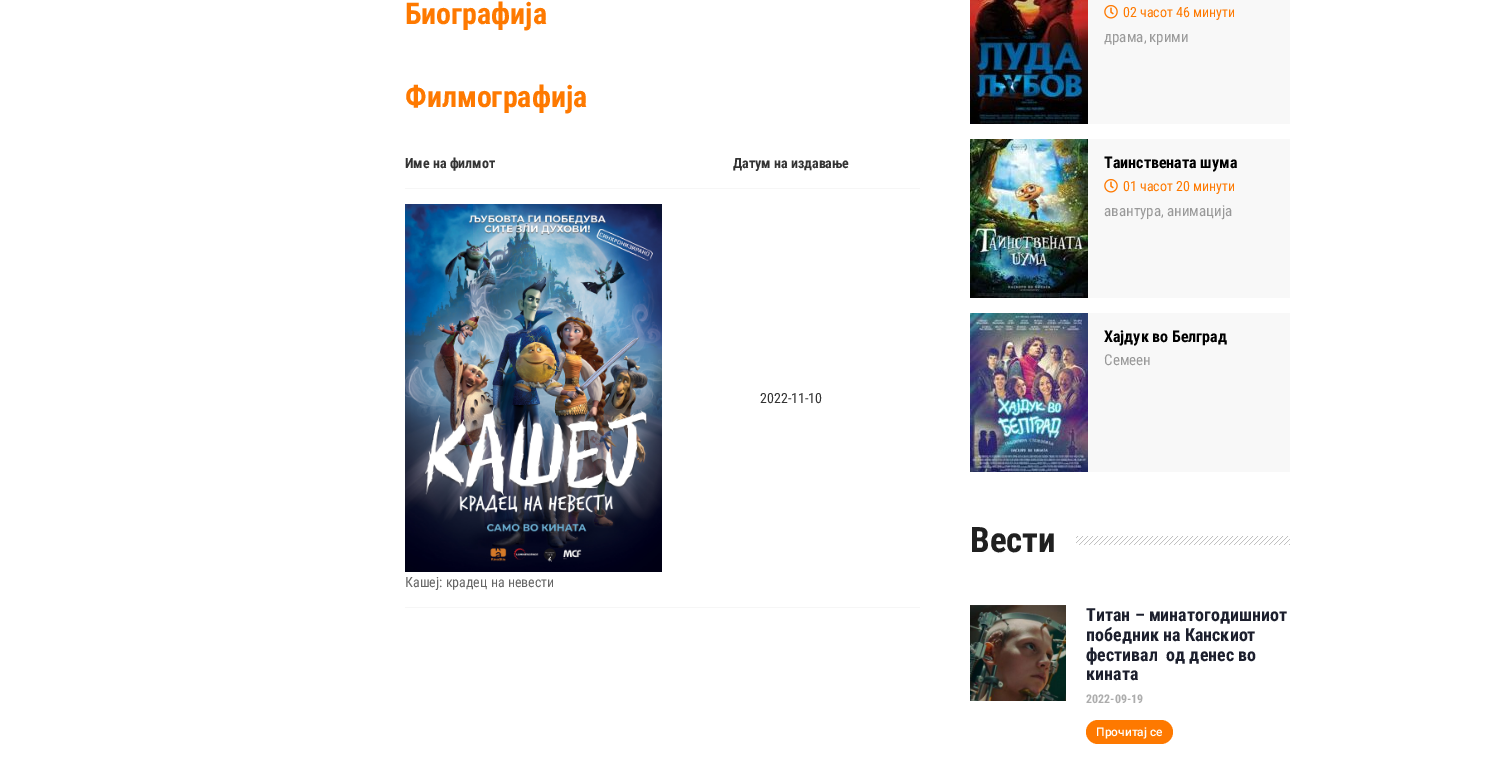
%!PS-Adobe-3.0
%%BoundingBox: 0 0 1490 759
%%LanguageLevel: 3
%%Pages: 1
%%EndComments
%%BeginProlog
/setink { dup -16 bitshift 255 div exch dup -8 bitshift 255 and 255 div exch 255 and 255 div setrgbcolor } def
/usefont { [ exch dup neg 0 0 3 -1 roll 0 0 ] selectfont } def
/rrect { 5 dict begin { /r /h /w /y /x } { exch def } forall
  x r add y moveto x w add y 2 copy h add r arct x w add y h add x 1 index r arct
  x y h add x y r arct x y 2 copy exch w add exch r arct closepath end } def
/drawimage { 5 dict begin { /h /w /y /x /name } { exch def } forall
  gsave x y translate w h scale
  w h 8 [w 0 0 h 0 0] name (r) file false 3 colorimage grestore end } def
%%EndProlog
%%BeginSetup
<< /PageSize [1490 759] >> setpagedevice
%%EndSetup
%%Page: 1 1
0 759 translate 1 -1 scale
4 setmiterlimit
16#FFFFFF setink
0 0 1490 759 rectfill
/RobotoCondensed-Bold 30 usefont
16#FE7900 setink
405 24 moveto (Биографија) show
405 107 moveto (Филмографија) show
16#F6F6F6 setink
405 188 515 1 rectfill
/RobotoCondensed-Bold 14 usefont
16#333333 setink
405 168 moveto (Име на филмот) show
733 168 moveto (Датум на издавање) show
/RobotoCondensed-Regular 14 usefont
760 403 moveto (2022-11-10) show
16#F6F6F6 setink
405 607 515 1 rectfill
(img1.raw) 405 204 257 368 drawimage
16#666666 setink
405 587 moveto (Кашеј: крадец на невести) show
16#F8F8F8 setink
1088 0 202 124 rectfill
(img2.raw) 970 0 118 124 drawimage
(img3.raw) 1104 5 14 14 drawimage
16#FE7900 setink
1123 17 moveto (02 часот 46 минути) show
/RobotoCondensed-Regular 15 usefont
16#999999 setink
1104 42 moveto (драма) show
/RobotoCondensed-Regular 14 usefont
1144 42 moveto (,) show
/RobotoCondensed-Regular 15 usefont
1149 42 moveto (крими) show
16#F8F8F8 setink
1088 139 202 159 rectfill
(img4.raw) 970 139 118 159 drawimage
/RobotoCondensed-Bold 16 usefont
16#000000 setink
1104 168 moveto (Таинствената шума) show
(img3.raw) 1104 179 14 14 drawimage
/RobotoCondensed-Regular 14 usefont
16#FE7900 setink
1123 191 moveto (01 часот 20 минути) show
/RobotoCondensed-Regular 15 usefont
16#999999 setink
1104 216 moveto (авантура) show
/RobotoCondensed-Regular 14 usefont
1161 216 moveto (,) show
/RobotoCondensed-Regular 15 usefont
1167 216 moveto (анимација) show
16#F8F8F8 setink
1088 313 202 159 rectfill
(img5.raw) 970 313 118 159 drawimage
/RobotoCondensed-Bold 16 usefont
16#000000 setink
1104 342 moveto (Хајдук во Белград) show
/RobotoCondensed-Regular 15 usefont
16#999999 setink
1104 365 moveto (Семеен) show
/RobotoCondensed-Bold 35 usefont
16#202020 setink
970 552 moveto (Вести) show
(img6.raw) 1076 536 214 9 drawimage
(img7.raw) 970 605 96 96 drawimage
/RobotoCondensed-Bold 18 usefont
16#1C1F2D setink
[
    [(Титан – минатогодишниот) 1086 621]
    [(победник на Канскиот) 1086 641]
    [(фестивал  од денес во) 1086 661]
    [(кината) 1086 680]
] { aload pop moveto show } forall
/RobotoCondensed-Bold 12 usefont
16#ADADAD setink
1086 703 moveto (2022-09-19) show
16#FE7900 setink
1086 720 87 24 12 rrect fill
/Roboto-Medium 12 usefont
16#FFFFFF setink
1096 736 moveto (Прочитај се) show
showpage
%%EOF
